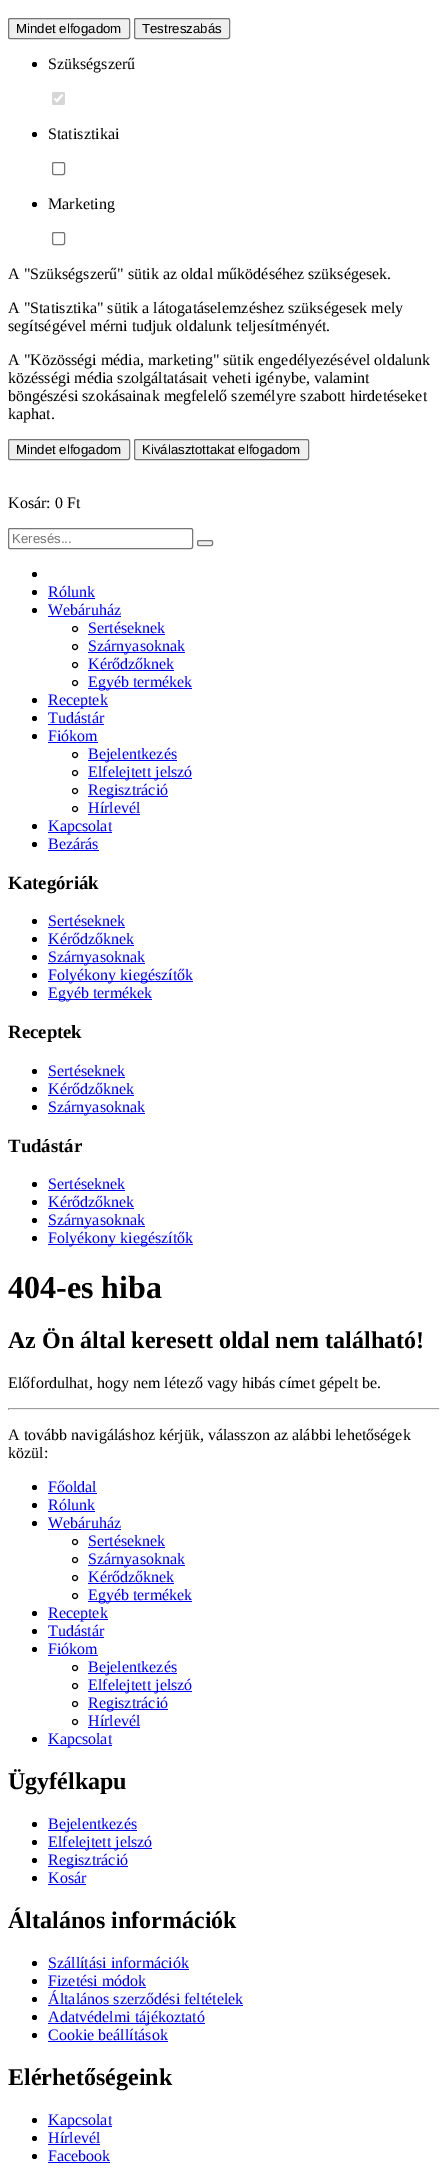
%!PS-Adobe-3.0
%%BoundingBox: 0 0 448 2169
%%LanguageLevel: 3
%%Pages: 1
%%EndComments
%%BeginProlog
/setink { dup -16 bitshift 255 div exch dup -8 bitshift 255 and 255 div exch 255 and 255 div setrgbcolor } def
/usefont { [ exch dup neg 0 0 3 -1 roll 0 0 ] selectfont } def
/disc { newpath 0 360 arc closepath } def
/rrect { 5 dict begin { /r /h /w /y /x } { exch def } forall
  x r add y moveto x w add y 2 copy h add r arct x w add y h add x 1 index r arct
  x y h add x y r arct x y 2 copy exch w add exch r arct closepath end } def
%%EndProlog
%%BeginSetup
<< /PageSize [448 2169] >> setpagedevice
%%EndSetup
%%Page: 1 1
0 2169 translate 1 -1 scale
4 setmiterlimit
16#FFFFFF setink
0 0 448 2169 rectfill
16#EFEFEF setink
8.5 18.5 121 20 1.5 rrect gsave fill grestore
16#767676 setink
stroke
/LiberationSans-Regular 13.25 usefont
16#000000 setink
16 33 moveto (Mindet elfogadom) show
16#EFEFEF setink
134.5 18.5 95 20 1.5 rrect gsave fill grestore
16#767676 setink
stroke
16#000000 setink
142 33 moveto (Testreszabás) show
34.5 64.5 2.5 disc fill
/LiberationSerif-Regular 16 usefont
48 69 moveto (Szükségszerű) show
16#D6D6D6 setink
52 92 13 13 2 rrect fill
16#FFFFFF setink
2.1 setlinewidth
54.5 98.5 moveto 57 101 lineto 62.5 94.5 lineto stroke
16#000000 setink
34.5 134.5 2.5 disc fill
48 139 moveto (Statisztikai) show
16#767676 setink
1 setlinewidth
52.5 162.5 12 12 1.5 rrect stroke
16#000000 setink
34.5 204.5 2.5 disc fill
48 209 moveto (Marketing) show
16#767676 setink
52.5 232.5 12 12 1.5 rrect stroke
16#000000 setink
[
    [(A "Szükségszerű" sütik az oldal működéséhez szükségesek.) 8 279]
    [(A "Statisztika" sütik a látogatáselemzéshez szükségesek mely) 8 313]
    [(segítségével mérni tudjuk oldalunk teljesítményét.) 8 331]
    [(A "Közösségi média, marketing" sütik engedélyezésével oldalunk) 8 365]
    [(közésségi média szolgáltatásait veheti igénybe, valamint) 8 383]
    [(böngészési szokásainak megfelelő személyre szabott hirdetéseket) 8 401]
    [(kaphat.) 8 419]
] { aload pop moveto show } forall
16#EFEFEF setink
8.5 439.5 121 20 1.5 rrect gsave fill grestore
16#767676 setink
stroke
/LiberationSans-Regular 13.25 usefont
16#000000 setink
16 454 moveto (Mindet elfogadom) show
16#EFEFEF setink
134.5 439.5 174 20 1.5 rrect gsave fill grestore
16#767676 setink
stroke
16#000000 setink
142 454 moveto (Kiválasztottakat elfogadom) show
/LiberationSerif-Regular 16 usefont
8 508 moveto (Kosár: 0 Ft) show
16#767676 setink
8.5 528.5 184 20 1.5 rrect stroke
/LiberationSans-Regular 13.25 usefont
16#757575 setink
12 543 moveto (Keresés...) show
16#EFEFEF setink
197.5 540.5 15 5 1.5 rrect gsave fill grestore
16#767676 setink
stroke
16#000000 setink
34.5 574.5 2.5 disc fill
34.5 592.5 2.5 disc fill
/LiberationSerif-Regular 16 usefont
16#0000EE setink
48 597 moveto (Rólunk) show
48 598 47 1 rectfill
16#000000 setink
34.5 610.5 2.5 disc fill
16#0000EE setink
48 615 moveto (Webáruház) show
48 616 73 1 rectfill
16#000000 setink
75 629 2.5 disc stroke
16#0000EE setink
88 633 moveto (Sertéseknek) show
88 634 77 1 rectfill
16#000000 setink
75 647 2.5 disc stroke
16#0000EE setink
88 652 97 1 rectfill
88 651 moveto (Szárnyasoknak) show
16#000000 setink
75 665 2.5 disc stroke
16#0000EE setink
88 669 moveto (Kérődzőknek) show
88 670 86 1 rectfill
16#000000 setink
75 683 2.5 disc stroke
16#0000EE setink
88 688 104 1 rectfill
88 687 moveto (Egyéb termékek) show
16#000000 setink
34.5 700.5 2.5 disc fill
16#0000EE setink
48 706 60 1 rectfill
48 705 moveto (Receptek) show
16#000000 setink
34.5 718.5 2.5 disc fill
16#0000EE setink
48 723 moveto (Tudástár) show
48 724 56 1 rectfill
16#000000 setink
34.5 736.5 2.5 disc fill
16#0000EE setink
48 741 moveto (Fiókom) show
48 742 50 1 rectfill
16#000000 setink
75 755 2.5 disc stroke
16#0000EE setink
88 760 89 1 rectfill
88 759 moveto (Bejelentkezés) show
16#000000 setink
75 773 2.5 disc stroke
16#0000EE setink
88 778 104 1 rectfill
88 777 moveto (Elfelejtett jelszó) show
16#000000 setink
75 791 2.5 disc stroke
16#0000EE setink
88 796 80 1 rectfill
88 795 moveto (Regisztráció) show
16#000000 setink
75 809 2.5 disc stroke
16#0000EE setink
88 813 moveto (Hírlevél) show
88 814 52 1 rectfill
16#000000 setink
34.5 826.5 2.5 disc fill
16#0000EE setink
48 832 64 1 rectfill
48 831 moveto (Kapcsolat) show
16#000000 setink
34.5 844.5 2.5 disc fill
16#0000EE setink
48 849 moveto (Bezárás) show
48 850 51 1 rectfill
/LiberationSerif-Bold 18.75 usefont
16#000000 setink
8 889 moveto (Kategóriák) show
34.5 921.5 2.5 disc fill
/LiberationSerif-Regular 16 usefont
16#0000EE setink
48 926 moveto (Sertéseknek) show
48 927 77 1 rectfill
16#000000 setink
34.5 939.5 2.5 disc fill
16#0000EE setink
48 944 moveto (Kérődzőknek) show
48 945 86 1 rectfill
16#000000 setink
34.5 957.5 2.5 disc fill
16#0000EE setink
48 963 97 1 rectfill
48 962 moveto (Szárnyasoknak) show
16#000000 setink
34.5 975.5 2.5 disc fill
16#0000EE setink
48 981 145 1 rectfill
48 980 moveto (Folyékony kiegészítők) show
16#000000 setink
34.5 993.5 2.5 disc fill
16#0000EE setink
48 999 104 1 rectfill
48 998 moveto (Egyéb termékek) show
/LiberationSerif-Bold 18.75 usefont
16#000000 setink
8 1038 moveto (Receptek) show
34.5 1071.5 2.5 disc fill
/LiberationSerif-Regular 16 usefont
16#0000EE setink
48 1076 moveto (Sertéseknek) show
48 1077 77 1 rectfill
16#000000 setink
34.5 1089.5 2.5 disc fill
16#0000EE setink
48 1094 moveto (Kérődzőknek) show
48 1095 86 1 rectfill
16#000000 setink
34.5 1107.5 2.5 disc fill
16#0000EE setink
48 1113 97 1 rectfill
48 1112 moveto (Szárnyasoknak) show
/LiberationSerif-Bold 18.75 usefont
16#000000 setink
8 1152 moveto (Tudástár) show
34.5 1184.5 2.5 disc fill
/LiberationSerif-Regular 16 usefont
16#0000EE setink
48 1189 moveto (Sertéseknek) show
48 1190 77 1 rectfill
16#000000 setink
34.5 1202.5 2.5 disc fill
16#0000EE setink
48 1207 moveto (Kérődzőknek) show
48 1208 86 1 rectfill
16#000000 setink
34.5 1220.5 2.5 disc fill
16#0000EE setink
48 1226 97 1 rectfill
48 1225 moveto (Szárnyasoknak) show
16#000000 setink
34.5 1238.5 2.5 disc fill
16#0000EE setink
48 1244 145 1 rectfill
48 1243 moveto (Folyékony kiegészítők) show
/LiberationSerif-Bold 32 usefont
16#000000 setink
8 1298 moveto (404-es hiba) show
/LiberationSerif-Bold 24 usefont
8 1348 moveto (Az Ön által keresett oldal nem található!) show
/LiberationSerif-Regular 16 usefont
8 1388 moveto (Előfordulhat, hogy nem létező vagy hibás címet gépelt be.) show
[
    [8 1408 432 1 16#9F9F9F]
    [439 1408 1 2 16#EEEEEE]
    [8 1409 432 1 16#EEEEEE]
    [8 1408 1 2 16#9F9F9F]
] { aload pop setink rectfill } forall
16#000000 setink
8 1440 moveto (A tovább navigáláshoz kérjük, válasszon az alábbi lehetőségek) show
8 1458 moveto (közül:) show
34.5 1487.5 2.5 disc fill
16#0000EE setink
48 1492 moveto (Főoldal) show
48 1493 49 1 rectfill
16#000000 setink
34.5 1505.5 2.5 disc fill
16#0000EE setink
48 1510 moveto (Rólunk) show
48 1511 47 1 rectfill
16#000000 setink
34.5 1523.5 2.5 disc fill
16#0000EE setink
48 1528 moveto (Webáruház) show
48 1529 73 1 rectfill
16#000000 setink
75 1542 2.5 disc stroke
16#0000EE setink
88 1546 moveto (Sertéseknek) show
88 1547 77 1 rectfill
16#000000 setink
75 1560 2.5 disc stroke
16#0000EE setink
88 1565 97 1 rectfill
88 1564 moveto (Szárnyasoknak) show
16#000000 setink
75 1578 2.5 disc stroke
16#0000EE setink
88 1582 moveto (Kérődzőknek) show
88 1583 86 1 rectfill
16#000000 setink
75 1596 2.5 disc stroke
16#0000EE setink
88 1601 104 1 rectfill
88 1600 moveto (Egyéb termékek) show
16#000000 setink
34.5 1613.5 2.5 disc fill
16#0000EE setink
48 1619 60 1 rectfill
48 1618 moveto (Receptek) show
16#000000 setink
34.5 1631.5 2.5 disc fill
16#0000EE setink
48 1636 moveto (Tudástár) show
48 1637 56 1 rectfill
16#000000 setink
34.5 1649.5 2.5 disc fill
16#0000EE setink
48 1654 moveto (Fiókom) show
48 1655 50 1 rectfill
16#000000 setink
75 1668 2.5 disc stroke
16#0000EE setink
88 1673 89 1 rectfill
88 1672 moveto (Bejelentkezés) show
16#000000 setink
75 1686 2.5 disc stroke
16#0000EE setink
88 1691 104 1 rectfill
88 1690 moveto (Elfelejtett jelszó) show
16#000000 setink
75 1704 2.5 disc stroke
16#0000EE setink
88 1709 80 1 rectfill
88 1708 moveto (Regisztráció) show
16#000000 setink
75 1722 2.5 disc stroke
16#0000EE setink
88 1726 moveto (Hírlevél) show
88 1727 52 1 rectfill
16#000000 setink
34.5 1739.5 2.5 disc fill
16#0000EE setink
48 1745 64 1 rectfill
48 1744 moveto (Kapcsolat) show
/LiberationSerif-Bold 24 usefont
16#000000 setink
8 1789 moveto (Ügyfélkapu) show
34.5 1824.5 2.5 disc fill
16#0000EE setink
48 1830 89 1 rectfill
/LiberationSerif-Regular 16 usefont
48 1829 moveto (Bejelentkezés) show
16#000000 setink
34.5 1842.5 2.5 disc fill
16#0000EE setink
48 1848 104 1 rectfill
48 1847 moveto (Elfelejtett jelszó) show
16#000000 setink
34.5 1860.5 2.5 disc fill
16#0000EE setink
48 1866 80 1 rectfill
48 1865 moveto (Regisztráció) show
16#000000 setink
34.5 1878.5 2.5 disc fill
16#0000EE setink
48 1883 moveto (Kosár) show
48 1884 38 1 rectfill
/LiberationSerif-Bold 24 usefont
16#000000 setink
8 1928 moveto (Általános információk) show
34.5 1963.5 2.5 disc fill
/LiberationSerif-Regular 16 usefont
16#0000EE setink
48 1968 moveto (Szállítási információk) show
48 1969 141 1 rectfill
16#000000 setink
34.5 1981.5 2.5 disc fill
16#0000EE setink
48 1986 moveto (Fizetési módok) show
48 1987 98 1 rectfill
16#000000 setink
34.5 1999.5 2.5 disc fill
16#0000EE setink
48 2004 moveto (Általános szerződési feltételek) show
48 2005 195 1 rectfill
16#000000 setink
34.5 2017.5 2.5 disc fill
16#0000EE setink
48 2023 157 1 rectfill
48 2022 moveto (Adatvédelmi tájékoztató) show
16#000000 setink
34.5 2035.5 2.5 disc fill
16#0000EE setink
48 2040 moveto (Cookie beállítások) show
48 2041 120 1 rectfill
/LiberationSerif-Bold 24 usefont
16#000000 setink
8 2085 moveto (Elérhetőségeink) show
34.5 2120.5 2.5 disc fill
16#0000EE setink
48 2126 64 1 rectfill
/LiberationSerif-Regular 16 usefont
48 2125 moveto (Kapcsolat) show
16#000000 setink
34.5 2138.5 2.5 disc fill
16#0000EE setink
48 2143 moveto (Hírlevél) show
48 2144 52 1 rectfill
16#000000 setink
34.5 2156.5 2.5 disc fill
16#0000EE setink
48 2161 moveto (Facebook) show
48 2162 62 1 rectfill
showpage
%%EOF
